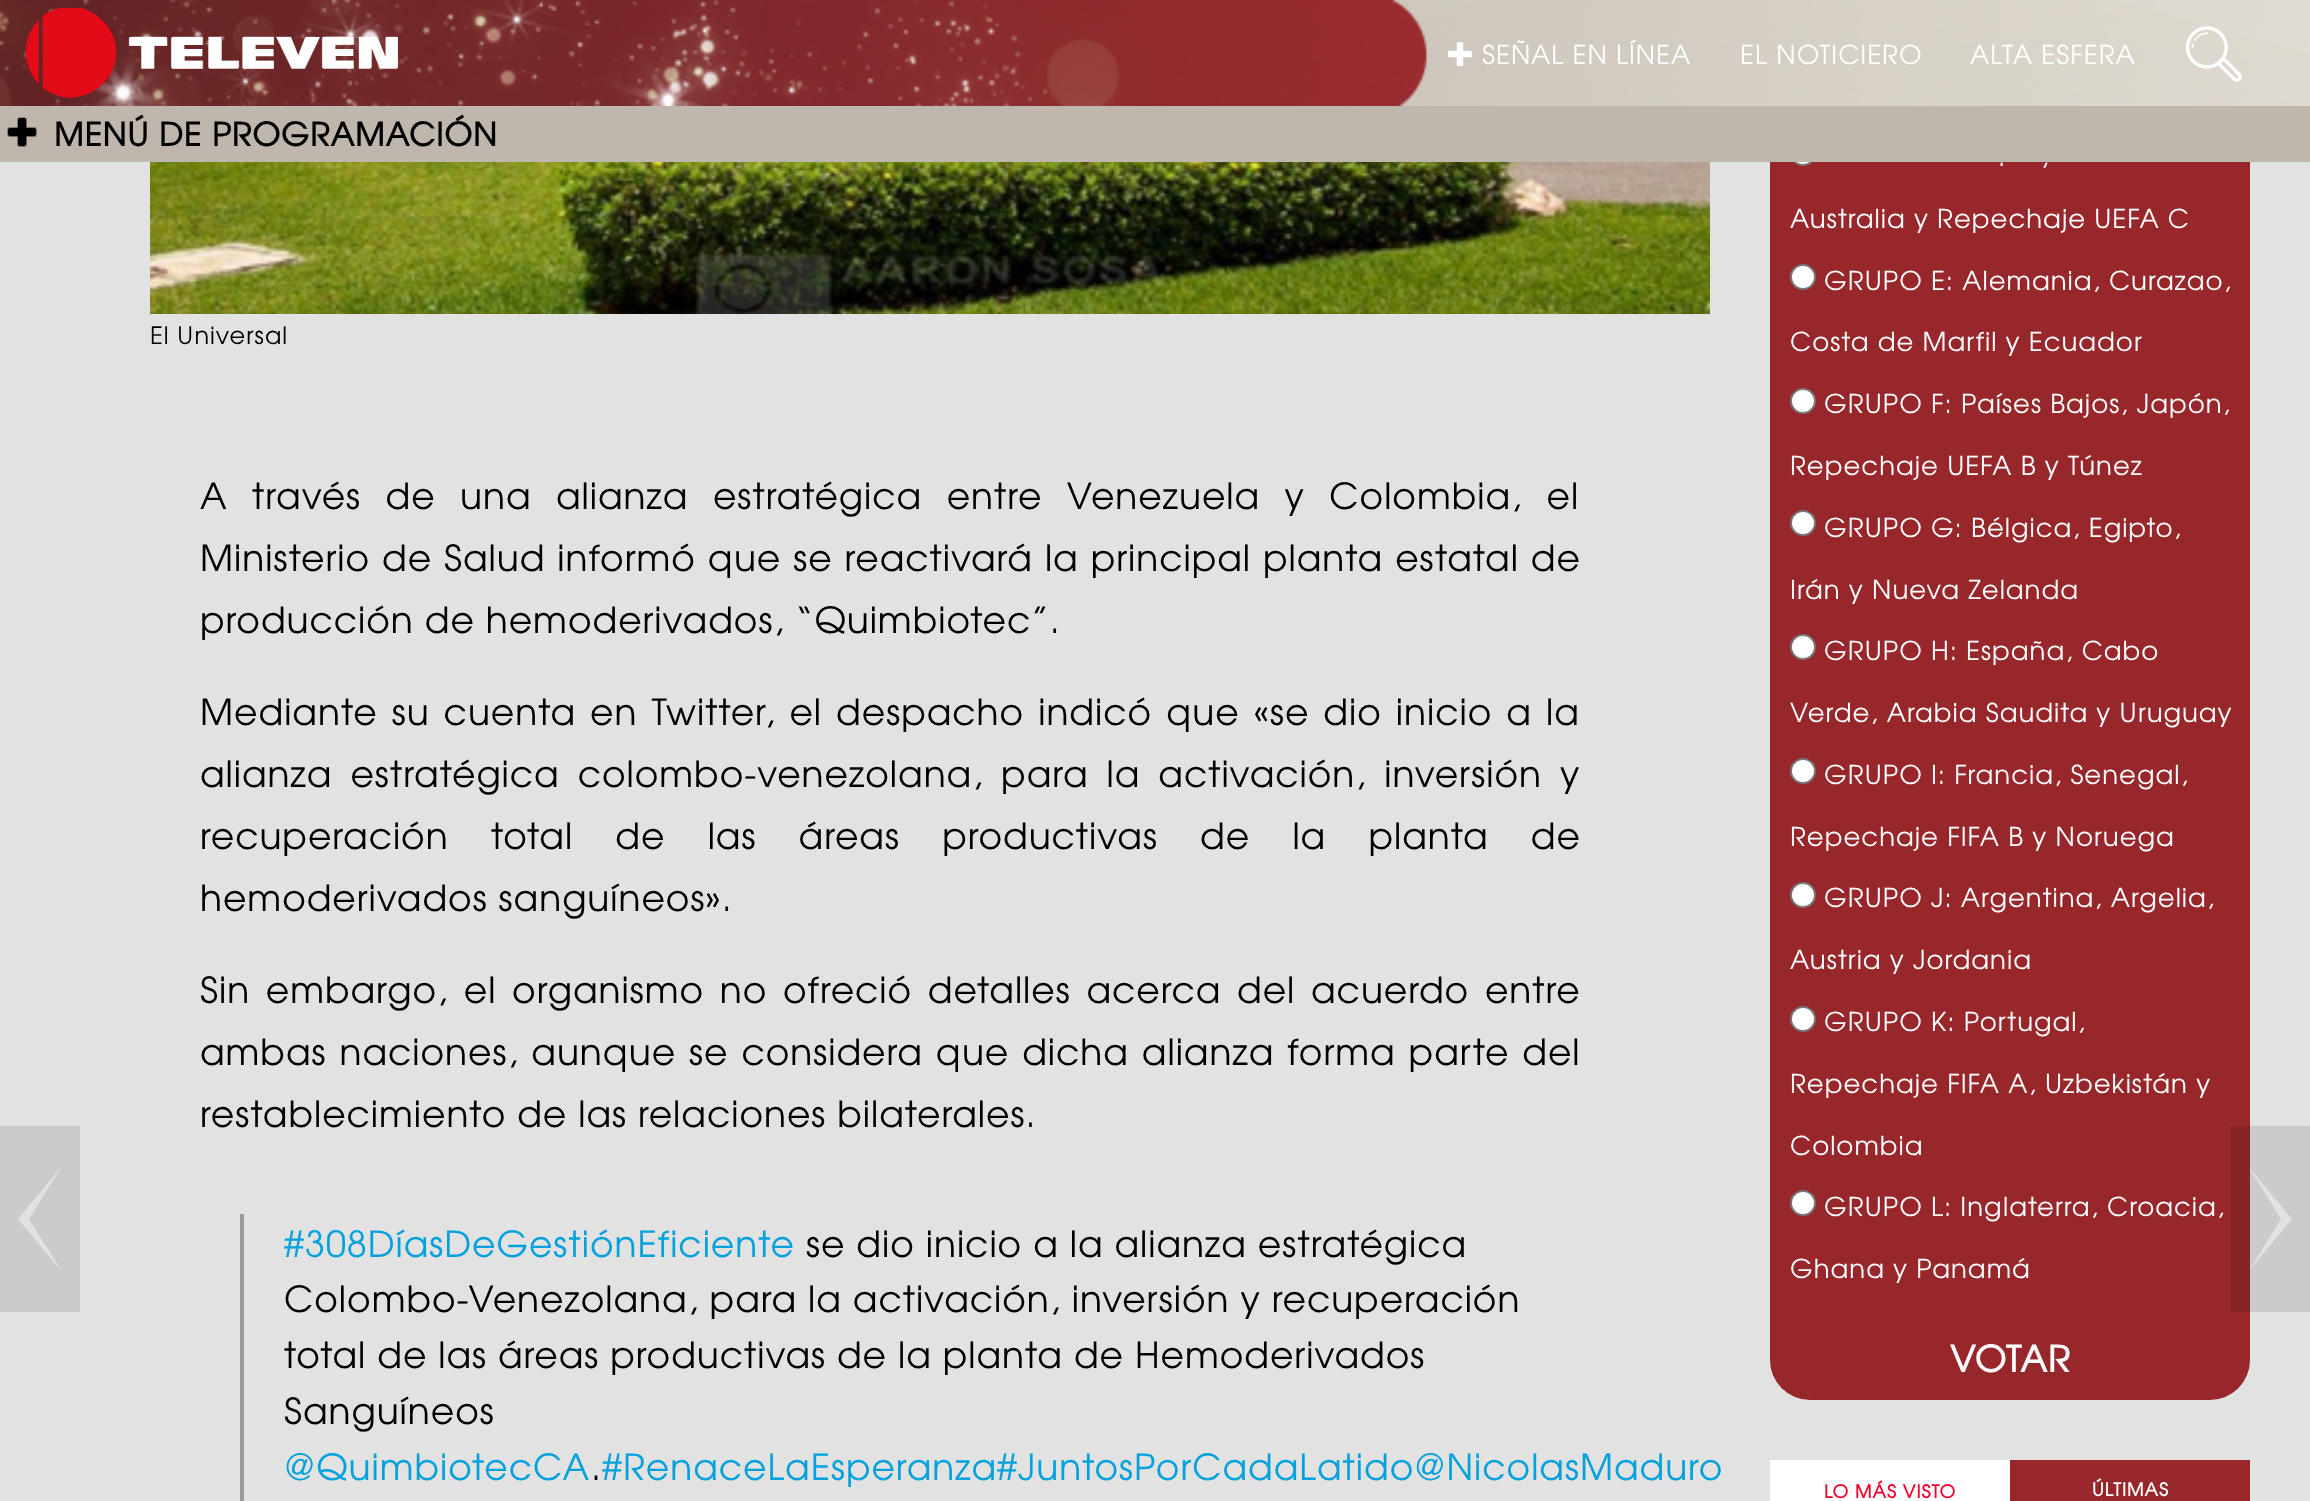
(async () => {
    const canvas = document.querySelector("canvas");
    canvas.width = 2310;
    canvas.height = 1501;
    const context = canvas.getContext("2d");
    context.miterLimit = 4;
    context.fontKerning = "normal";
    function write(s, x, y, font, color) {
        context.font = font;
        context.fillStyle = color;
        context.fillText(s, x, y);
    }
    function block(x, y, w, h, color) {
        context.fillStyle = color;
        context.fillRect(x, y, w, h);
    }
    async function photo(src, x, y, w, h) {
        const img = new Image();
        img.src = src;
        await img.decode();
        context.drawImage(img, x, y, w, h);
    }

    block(0, 0, 2310, 1501, "rgb(226, 226, 226)");
    await photo("media/1.png", 0, 0, 2310, 106);
    await photo("media/2.png", 25, 8, 373, 90);
    await photo("media/3.png", 1448, 42, 24, 24);
    context.letterSpacing = "1px";
    write("SEÑAL EN LÍNEA", 1482, 64, "26px TeX Gyre Adventor", "rgb(255, 255, 255)");
    write("EL NOTICIERO", 1740, 64, "26px TeX Gyre Adventor", "rgb(255, 255, 255)");
    write("ALTA ESFERA", 1970, 64, "26px TeX Gyre Adventor", "rgb(255, 255, 255)");
    await photo("media/4.png", 2185, 26, 57, 56);
    block(1770, 162, 480, 1156, "rgb(152, 39, 44)");
    context.fillStyle = "rgb(255, 255, 255)";
    context.beginPath();
    context.arc(1803, 153, 12, 0, Math.PI * 2);
    context.fill();
    context.strokeStyle = "rgb(118, 118, 118)";
    context.lineWidth = 2;
    context.stroke();
    block(0, 106, 2310, 56, "rgb(191, 183, 173)");
    await photo("media/5.png", 7, 117, 30, 30);
    write("MENÚ DE PROGRAMACIÓN", 54, 146, "bold 32px TeX Gyre Adventor", "rgb(0, 0, 0)");
    context.fillStyle = "rgb(203, 203, 203)";
    context.beginPath();
    context.moveTo(0, 1126);
    context.lineTo(0, 1312);
    context.lineTo(80, 1312);
    context.lineTo(80, 1126);
    context.closePath();
    context.moveTo(62, 1272);
    context.lineTo(18, 1219);
    context.lineTo(62, 1166);
    context.lineTo(29, 1219);
    context.closePath();
    context.fill();
    await photo("media/6.png", 150, 162, 1560, 152);
    write("El Universal", 150, 344, "24px TeX Gyre Adventor", "rgb(0, 0, 0)");
    context.wordSpacing = "13.5px";
    write("A través de una alianza estratégica entre Venezuela y Colombia, el", 200, 509, "36px TeX Gyre Adventor", "rgb(0, 0, 0)");
    context.wordSpacing = "1px";
    write("Ministerio de Salud informó que se reactivará la principal planta estatal de", 200, 571, "36px TeX Gyre Adventor", "rgb(0, 0, 0)");
    context.wordSpacing = "0px";
    write("producción de hemoderivados, “Quimbiotec”.", 200, 633, "36px TeX Gyre Adventor", "rgb(0, 0, 0)");
    context.wordSpacing = "3.1px";
    write("Mediante su cuenta en Twitter, el despacho indicó que «se dio inicio a la", 200, 725, "36px TeX Gyre Adventor", "rgb(0, 0, 0)");
    context.wordSpacing = "7px";
    write("alianza estratégica colombo-venezolana, para la activación, inversión y", 200, 787, "36px TeX Gyre Adventor", "rgb(0, 0, 0)");
    context.wordSpacing = "31.25px";
    write("recuperación total de las áreas productivas de la planta de", 200, 849, "36px TeX Gyre Adventor", "rgb(0, 0, 0)");
    context.wordSpacing = "0px";
    write("hemoderivados sanguíneos».", 200, 911, "36px TeX Gyre Adventor", "rgb(0, 0, 0)");
    context.wordSpacing = "4.75px";
    write("Sin embargo, el organismo no ofreció detalles acerca del acuerdo entre", 200, 1003, "36px TeX Gyre Adventor", "rgb(0, 0, 0)");
    context.wordSpacing = "2px";
    write("ambas naciones, aunque se considera que dicha alianza forma parte del", 200, 1065, "36px TeX Gyre Adventor", "rgb(0, 0, 0)");
    context.wordSpacing = "0px";
    write("restablecimiento de las relaciones bilaterales.", 200, 1127, "36px TeX Gyre Adventor", "rgb(0, 0, 0)");
    block(240, 1214, 4, 287, "rgb(153, 153, 153)");
    write("#308DíasDeGestiónEficiente", 284, 1257, "36px TeX Gyre Adventor", "rgb(0, 161, 221)");
    write("se dio inicio a la alianza estratégica", 806, 1257, "36px TeX Gyre Adventor", "rgb(0, 0, 0)");
    write("Colombo-Venezolana, para la activación, inversión y recuperación", 284, 1312, "36px TeX Gyre Adventor", "rgb(0, 0, 0)");
    write("total de las áreas productivas de la planta de Hemoderivados", 284, 1368, "36px TeX Gyre Adventor", "rgb(0, 0, 0)");
    write("Sanguíneos", 284, 1424, "36px TeX Gyre Adventor", "rgb(0, 0, 0)");
    write("@QuimbiotecCA", 284, 1480, "36px TeX Gyre Adventor", "rgb(0, 161, 221)");
    write(".", 591, 1480, "36px TeX Gyre Adventor", "rgb(0, 0, 0)");
    write("#RenaceLaEsperanza#JuntosPorCadaLatido@NicolasMaduro", 602, 1480, "36px TeX Gyre Adventor", "rgb(0, 161, 221)");
    write(".", 1998, 166, "26px TeX Gyre Adventor", "rgb(255, 255, 255)");
    write(",", 2041, 166, "26px TeX Gyre Adventor", "rgb(255, 255, 255)");
    write("Australia y Repechaje UEFA C", 1790, 228, "26px TeX Gyre Adventor", "rgb(255, 255, 255)");
    context.beginPath();
    context.arc(1803, 277, 12, 0, Math.PI * 2);
    context.fill();
    context.stroke();
    write("GRUPO E: Alemania, Curazao,", 1824, 290, "26px TeX Gyre Adventor", "rgb(255, 255, 255)");
    write("Costa de Marfil y Ecuador", 1790, 351, "26px TeX Gyre Adventor", "rgb(255, 255, 255)");
    context.beginPath();
    context.arc(1803, 401, 12, 0, Math.PI * 2);
    context.fill();
    context.stroke();
    write("GRUPO F: Países Bajos, Japón,", 1824, 413, "26px TeX Gyre Adventor", "rgb(255, 255, 255)");
    write("Repechaje UEFA B y Túnez", 1790, 475, "26px TeX Gyre Adventor", "rgb(255, 255, 255)");
    context.beginPath();
    context.arc(1803, 523, 12, 0, Math.PI * 2);
    context.fill();
    context.stroke();
    write("GRUPO G: Bélgica, Egipto,", 1824, 537, "26px TeX Gyre Adventor", "rgb(255, 255, 255)");
    write("Irán y Nueva Zelanda", 1790, 599, "26px TeX Gyre Adventor", "rgb(255, 255, 255)");
    context.beginPath();
    context.arc(1803, 647, 12, 0, Math.PI * 2);
    context.fill();
    context.stroke();
    write("GRUPO H: España, Cabo", 1824, 660, "26px TeX Gyre Adventor", "rgb(255, 255, 255)");
    write("Verde, Arabia Saudita y Uruguay", 1790, 722, "26px TeX Gyre Adventor", "rgb(255, 255, 255)");
    context.beginPath();
    context.arc(1803, 771, 12, 0, Math.PI * 2);
    context.fill();
    context.stroke();
    write("GRUPO I: Francia, Senegal,", 1824, 784, "26px TeX Gyre Adventor", "rgb(255, 255, 255)");
    write("Repechaje FIFA B y Noruega", 1790, 846, "26px TeX Gyre Adventor", "rgb(255, 255, 255)");
    context.beginPath();
    context.arc(1803, 895, 12, 0, Math.PI * 2);
    context.fill();
    context.stroke();
    write("GRUPO J: Argentina, Argelia,", 1824, 907, "26px TeX Gyre Adventor", "rgb(255, 255, 255)");
    write("Austria y Jordania", 1790, 969, "26px TeX Gyre Adventor", "rgb(255, 255, 255)");
    context.beginPath();
    context.arc(1803, 1019, 12, 0, Math.PI * 2);
    context.fill();
    context.stroke();
    write("GRUPO K: Portugal,", 1824, 1031, "26px TeX Gyre Adventor", "rgb(255, 255, 255)");
    write("Repechaje FIFA A, Uzbekistán y", 1790, 1093, "26px TeX Gyre Adventor", "rgb(255, 255, 255)");
    write("Colombia", 1790, 1155, "26px TeX Gyre Adventor", "rgb(255, 255, 255)");
    context.beginPath();
    context.arc(1803, 1203, 12, 0, Math.PI * 2);
    context.fill();
    context.stroke();
    write("GRUPO L: Inglaterra, Croacia,", 1824, 1216, "26px TeX Gyre Adventor", "rgb(255, 255, 255)");
    write("Ghana y Panamá", 1790, 1278, "26px TeX Gyre Adventor", "rgb(255, 255, 255)");
    context.fillStyle = "rgb(152, 39, 44)";
    context.beginPath();
    context.roundRect(1770, 1318, 480, 82, [0, 0, 40, 40]);
    context.fill();
    write("VOTAR", 1950, 1372, "bold 36px TeX Gyre Adventor", "rgb(255, 255, 255)");
    block(1770, 1460, 240, 41, "rgb(255, 255, 255)");
    write("LO MÁS VISTO", 1824, 1498, "bold 18px TeX Gyre Adventor", "rgb(244, 0, 45)");
    block(2010, 1460, 240, 41, "rgb(152, 39, 44)");
    write("ÚLTIMAS", 2092, 1496, "bold 18px TeX Gyre Adventor", "rgb(255, 255, 255)");
    context.fillStyle = "rgba(0, 0, 0, 0.1)";
    context.beginPath();
    context.moveTo(2310, 1312);
    context.lineTo(2310, 1126);
    context.lineTo(2230, 1126);
    context.lineTo(2230, 1312);
    context.closePath();
    context.moveTo(2248, 1166);
    context.lineTo(2292, 1219);
    context.lineTo(2248, 1272);
    context.lineTo(2281, 1219);
    context.closePath();
    context.fill();
})();
